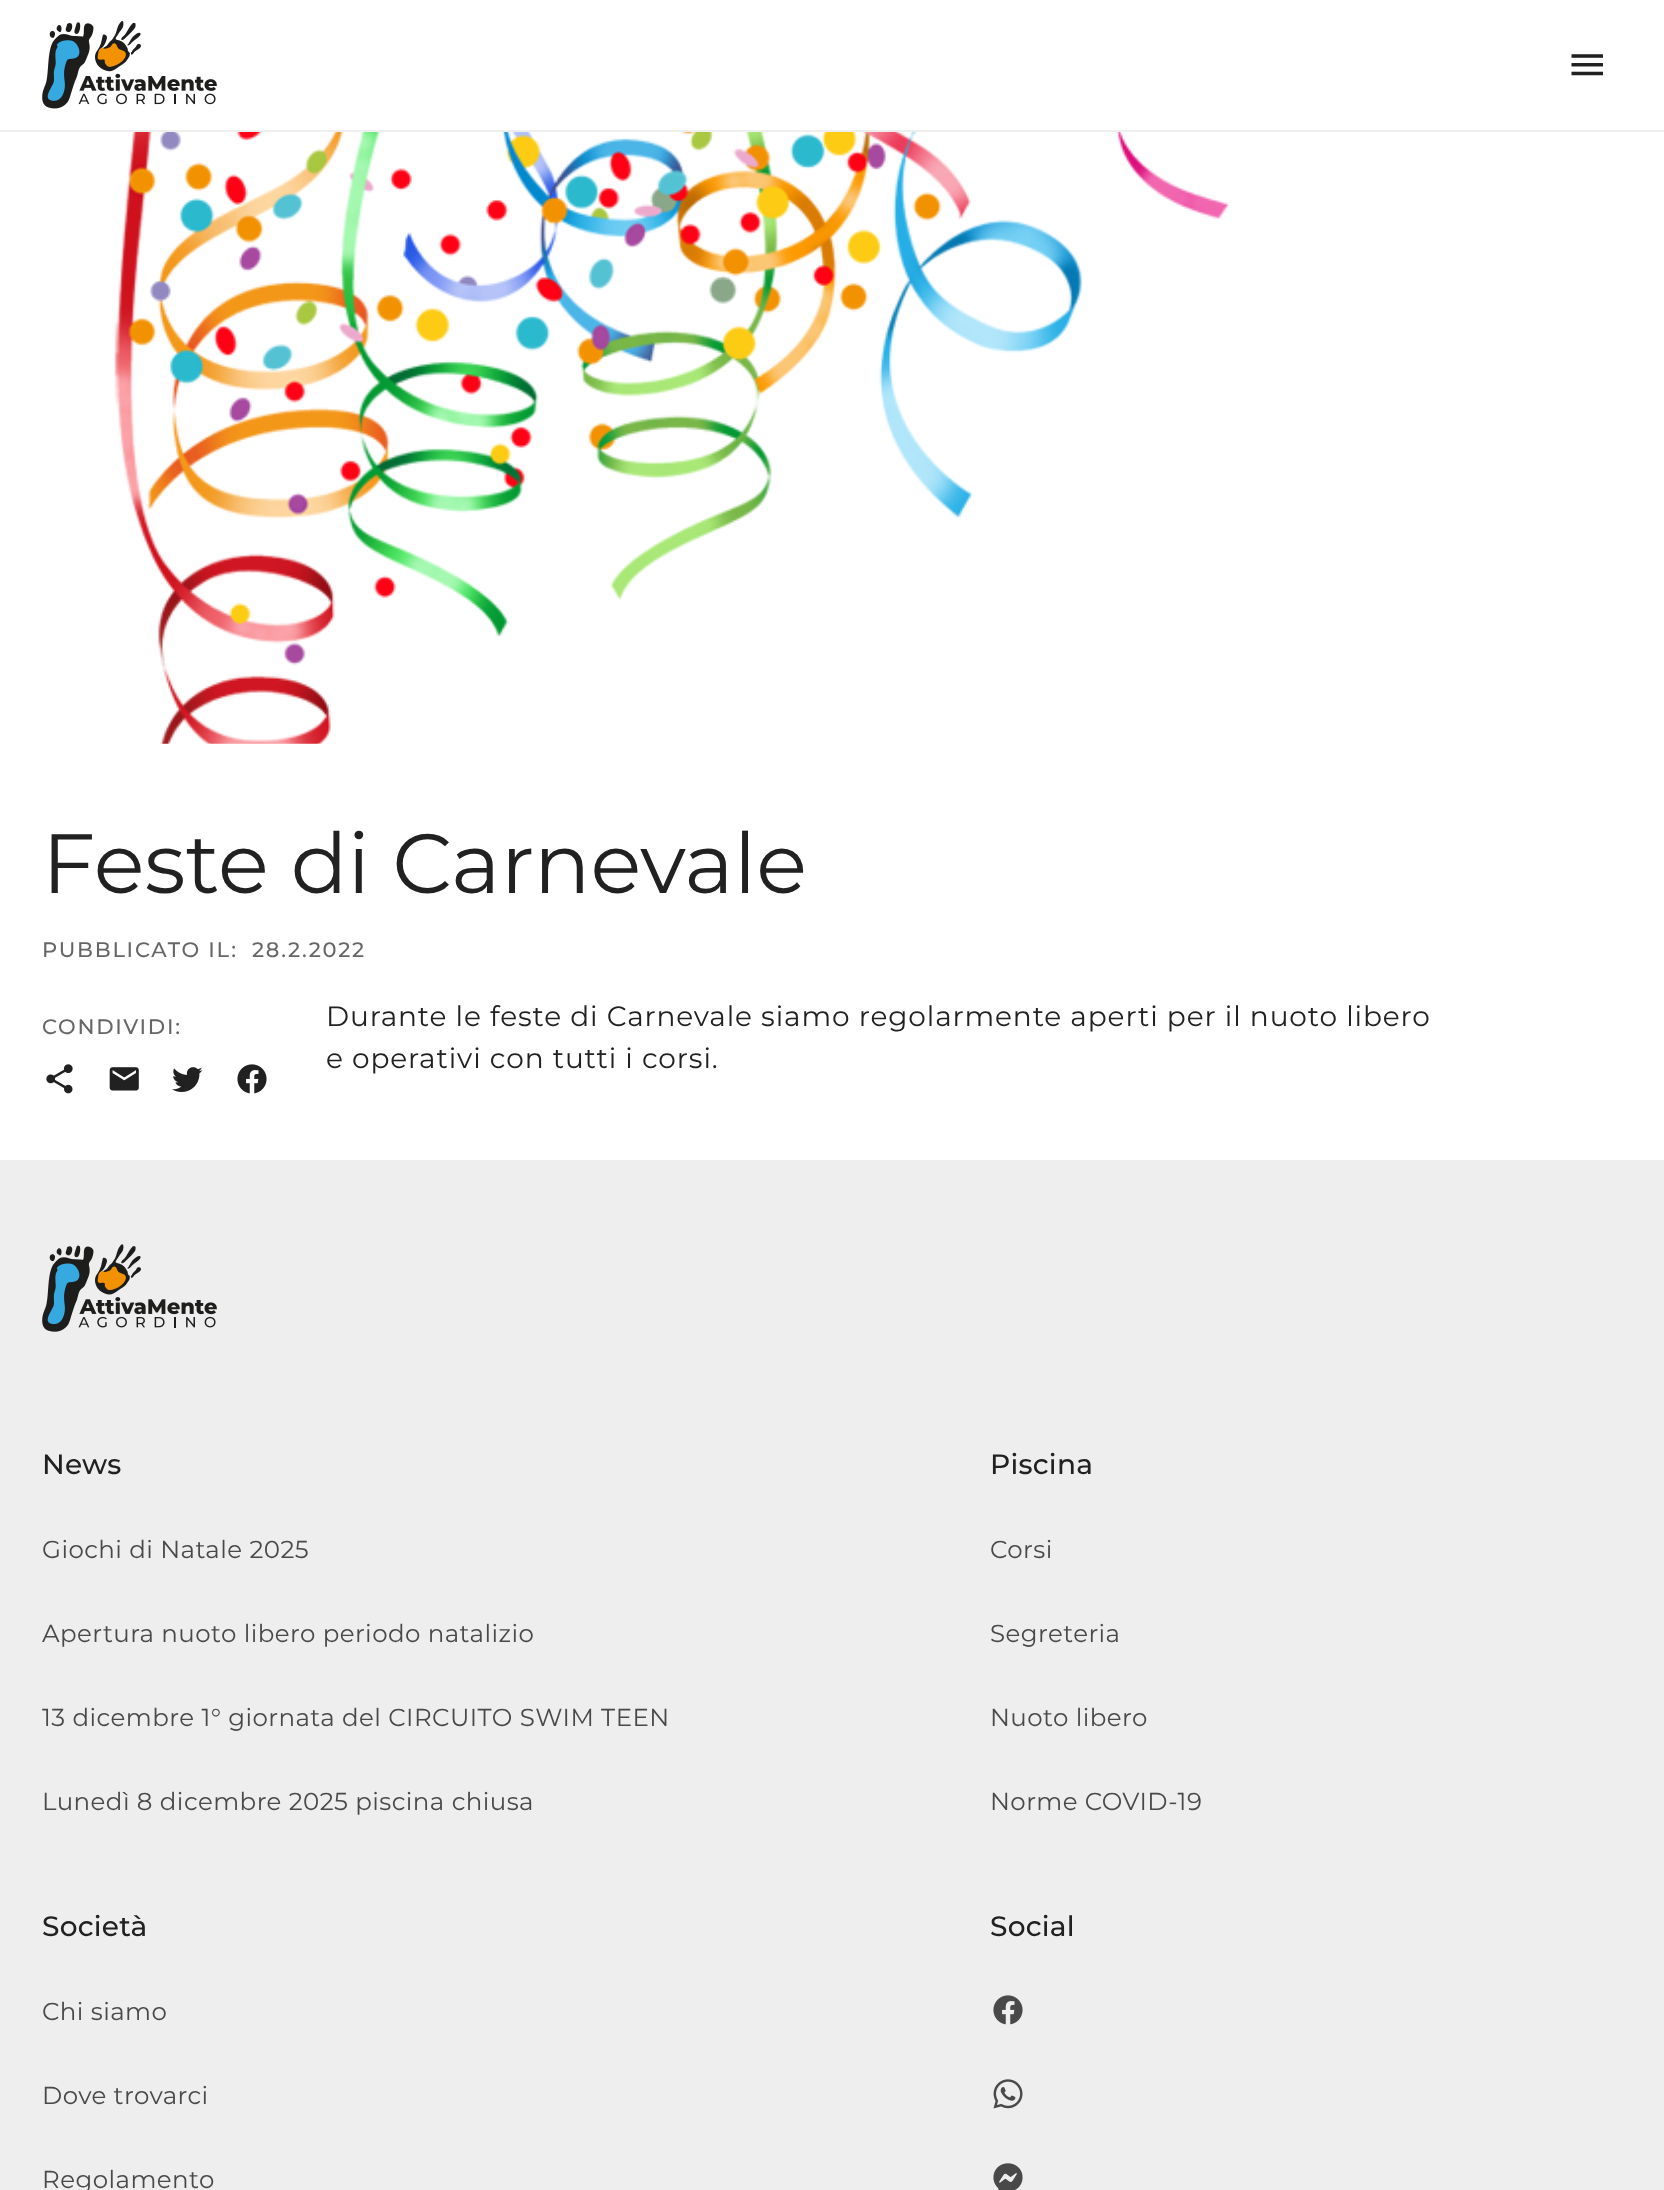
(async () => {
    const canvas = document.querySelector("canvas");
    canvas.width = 1664;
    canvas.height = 2190;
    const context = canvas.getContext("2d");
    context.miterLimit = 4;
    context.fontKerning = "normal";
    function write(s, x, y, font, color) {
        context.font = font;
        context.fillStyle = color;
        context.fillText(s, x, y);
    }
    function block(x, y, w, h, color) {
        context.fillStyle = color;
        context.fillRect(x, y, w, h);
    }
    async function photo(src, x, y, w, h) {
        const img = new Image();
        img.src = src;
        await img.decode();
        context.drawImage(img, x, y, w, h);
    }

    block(0, 0, 1664, 2190, "rgb(255, 255, 255)");
    block(0, 130, 1664, 2, "rgb(238, 238, 238)");
    await photo("media/1.png", 42, 21, 175, 88);
    await photo("media/2.png", 1571, 54, 32, 22);
    await photo("media/3.png", 114, 132, 1116, 612);
    write("Feste di Carnevale", 42, 893, "84px Montserrat", "rgb(33, 33, 33)");
    context.letterSpacing = "1.75px";
    write("PUBBLICATO IL:", 42, 957, "500 21px Montserrat", "rgb(102, 102, 102)");
    write("28.2.2022", 252, 957, "500 21px Montserrat", "rgb(102, 102, 102)");
    write("CONDIVIDI:", 42, 1034, "500 21px Montserrat", "rgb(102, 102, 102)");
    await photo("media/4.png", 46, 1064, 27, 30);
    await photo("media/5.png", 109, 1067, 30, 24);
    await photo("media/6.png", 172, 1067, 31, 25);
    await photo("media/7.png", 237, 1064, 30, 30);
    context.letterSpacing = "0.88px";
    write("Durante le feste di Carnevale siamo regolarmente aperti per il nuoto libero", 326, 1026, "28px Montserrat", "rgb(33, 33, 33)");
    write("e operativi con tutti i corsi.", 326, 1068, "28px Montserrat", "rgb(33, 33, 33)");
    block(0, 1160, 1664, 1030, "rgb(238, 238, 238)");
    await photo("media/8.png", 42, 1244, 175, 88);
    context.letterSpacing = "0.25px";
    write("News", 42, 1474, "500 28px Montserrat", "rgb(33, 33, 33)");
    context.letterSpacing = "0.45px";
    write("Giochi di Natale 2025", 42, 1558, "24.5px Montserrat", "rgb(73, 73, 73)");
    write("Apertura nuoto libero periodo natalizio", 42, 1642, "24.5px Montserrat", "rgb(73, 73, 73)");
    write("13 dicembre 1° giornata del CIRCUITO SWIM TEEN", 42, 1726, "24.5px Montserrat", "rgb(73, 73, 73)");
    write("Lunedì 8 dicembre 2025 piscina chiusa", 42, 1810, "24.5px Montserrat", "rgb(73, 73, 73)");
    context.letterSpacing = "0.25px";
    write("Piscina", 990, 1474, "500 28px Montserrat", "rgb(33, 33, 33)");
    context.letterSpacing = "0.45px";
    write("Corsi", 990, 1558, "24.5px Montserrat", "rgb(73, 73, 73)");
    write("Segreteria", 990, 1642, "24.5px Montserrat", "rgb(73, 73, 73)");
    write("Nuoto libero", 990, 1726, "24.5px Montserrat", "rgb(73, 73, 73)");
    write("Norme COVID-19", 990, 1810, "24.5px Montserrat", "rgb(73, 73, 73)");
    context.letterSpacing = "0.25px";
    write("Società", 42, 1936, "500 28px Montserrat", "rgb(33, 33, 33)");
    context.letterSpacing = "0.45px";
    write("Chi siamo", 42, 2020, "24.5px Montserrat", "rgb(73, 73, 73)");
    write("Dove trovarci", 42, 2104, "24.5px Montserrat", "rgb(73, 73, 73)");
    write("Regolamento", 42, 2188, "24.5px Montserrat", "rgb(73, 73, 73)");
    context.letterSpacing = "0.25px";
    write("Social", 990, 1936, "500 28px Montserrat", "rgb(33, 33, 33)");
    await photo("media/9.png", 993, 1995, 30, 30);
    await photo("media/10.png", 993, 2079, 30, 30);
    await photo("media/11.png", 993, 2163, 30, 27);
})();
